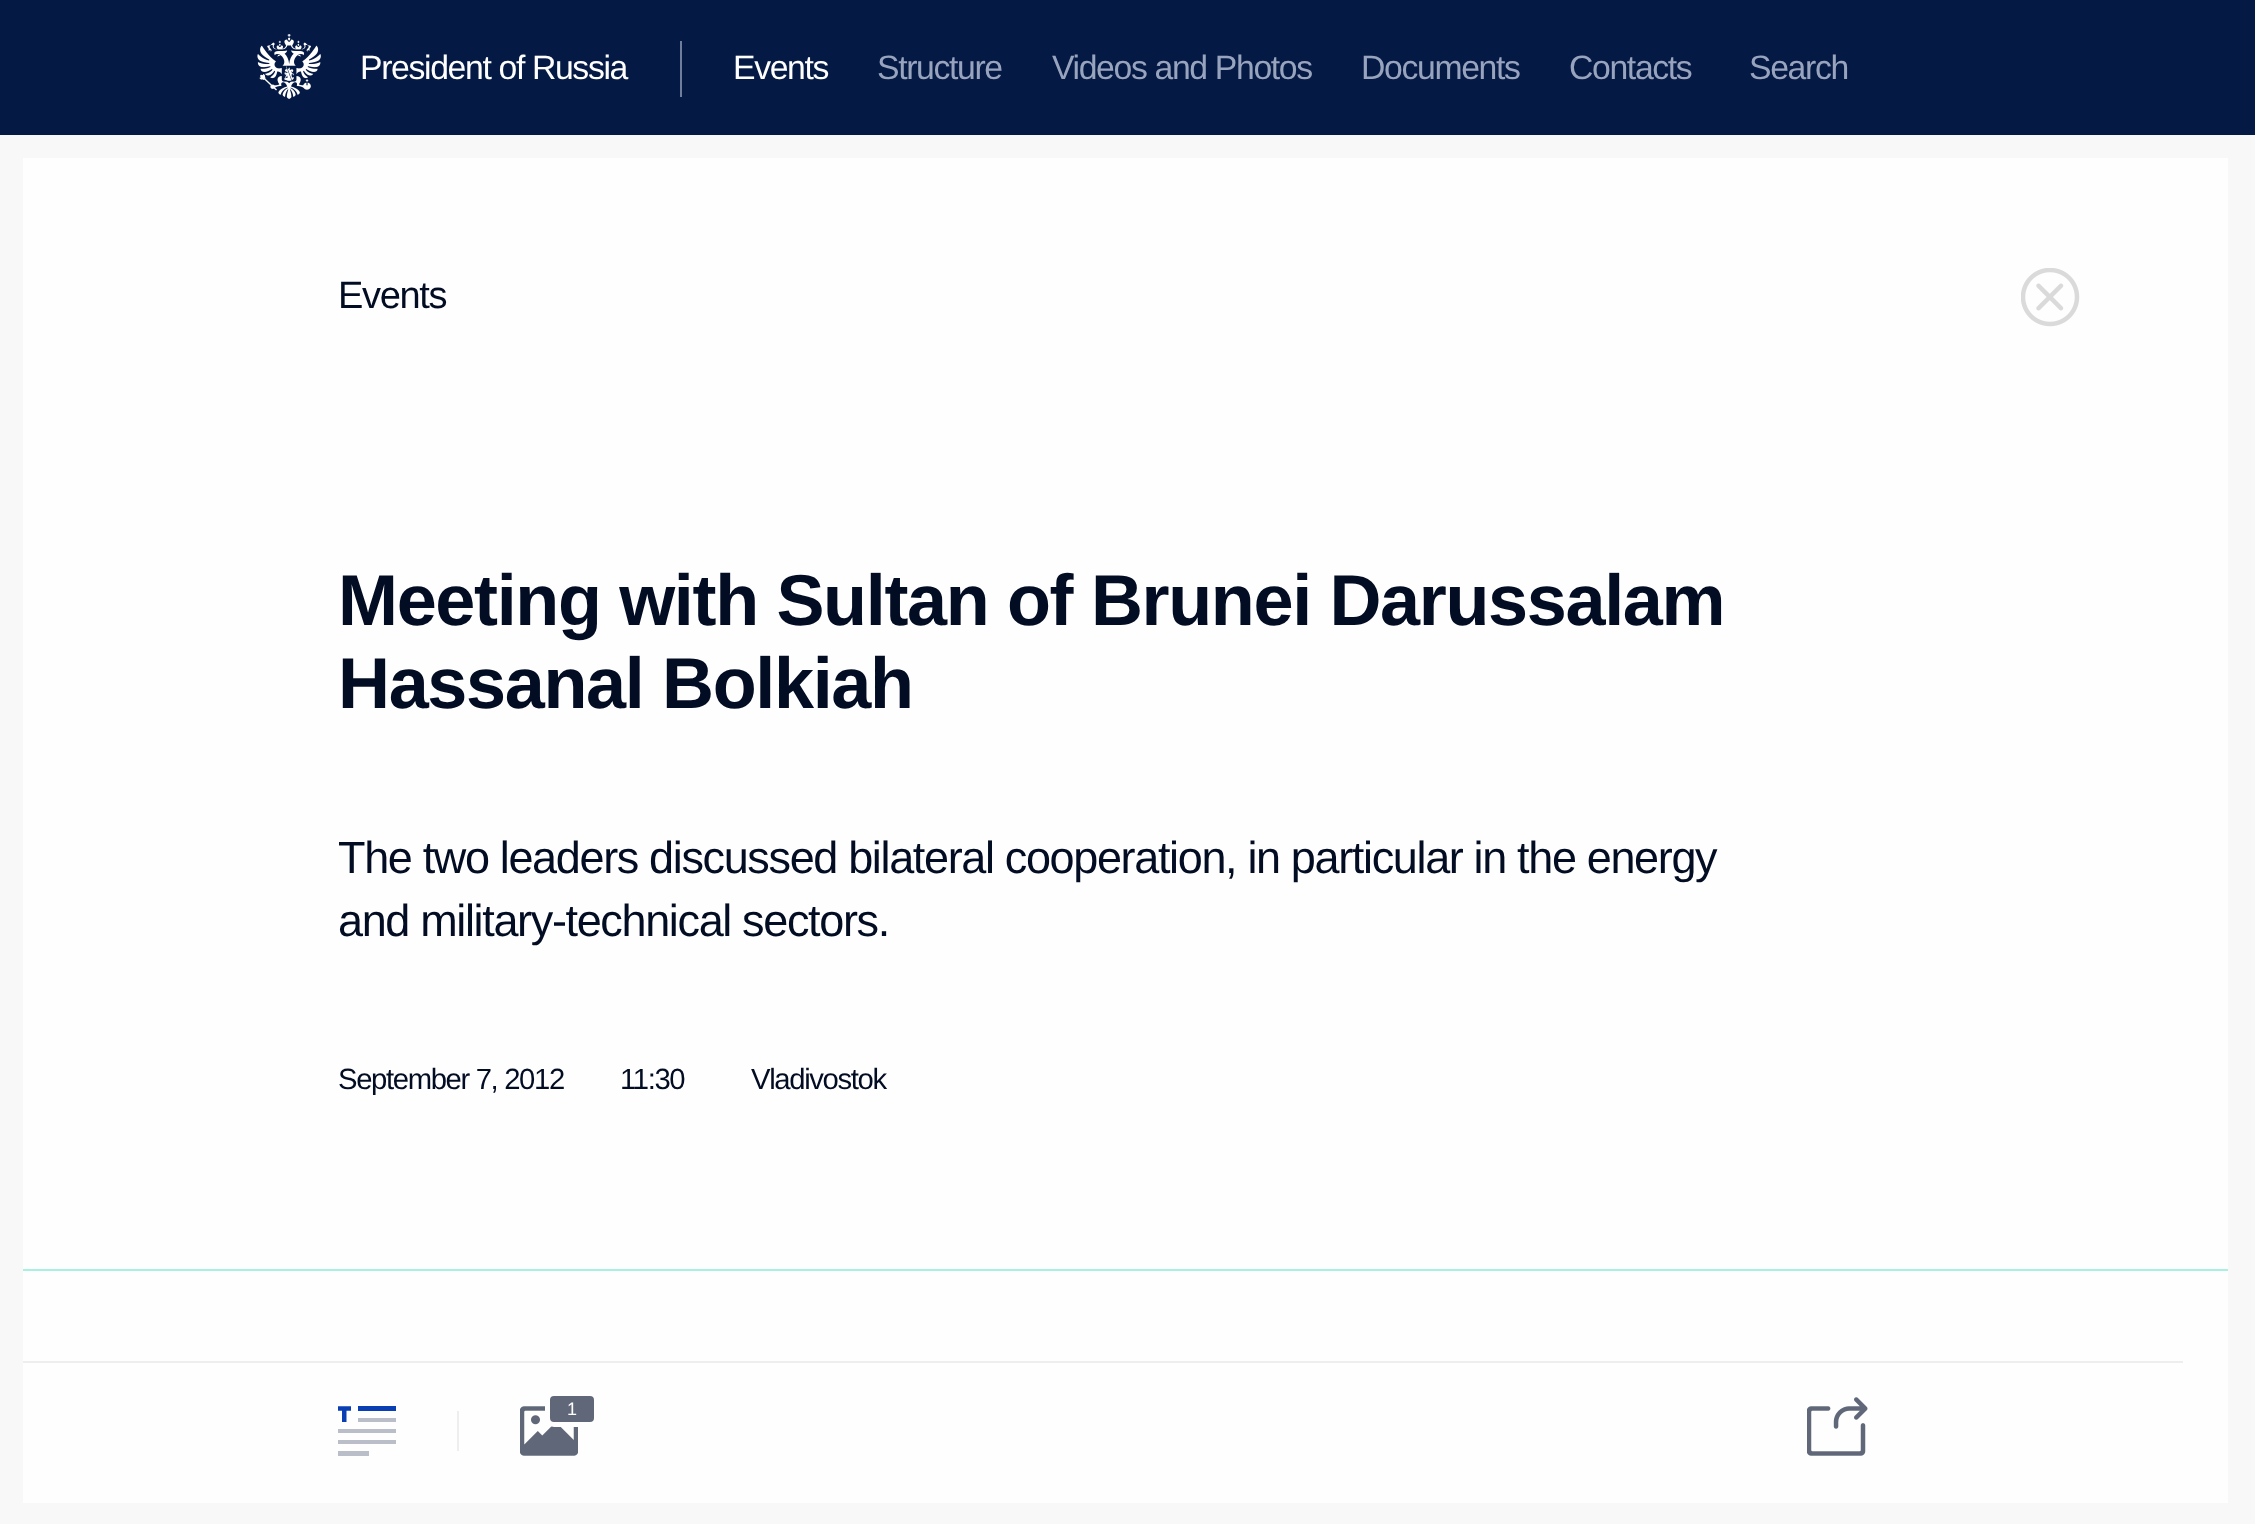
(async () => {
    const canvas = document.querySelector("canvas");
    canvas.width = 2255;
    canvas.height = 1524;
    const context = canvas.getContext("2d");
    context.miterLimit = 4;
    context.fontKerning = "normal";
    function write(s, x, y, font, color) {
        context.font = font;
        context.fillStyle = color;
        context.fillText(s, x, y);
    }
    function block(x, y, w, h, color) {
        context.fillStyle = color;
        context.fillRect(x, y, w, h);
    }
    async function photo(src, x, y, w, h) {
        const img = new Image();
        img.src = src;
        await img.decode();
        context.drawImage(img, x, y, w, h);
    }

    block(0, 0, 2255, 1524, "rgb(248, 248, 248)");
    block(0, 0, 2255, 135, "rgb(5, 25, 69)");
    await photo("media/1.png", 257, 34, 64, 65);
    context.letterSpacing = "-1.35px";
    write("President of Russia", 360, 79, "33.75px Liberation Sans", "rgb(254, 254, 254)");
    block(680, 41, 2, 56, "rgb(112, 126, 156)");
    write("Events", 733, 79, "33.75px Liberation Sans", "rgb(254, 254, 254)");
    write("Structure", 877, 79, "33.75px Liberation Sans", "rgb(152, 164, 190)");
    write("Videos and Photos", 1052, 79, "33.75px Liberation Sans", "rgb(152, 164, 190)");
    write("Documents", 1361, 79, "33.75px Liberation Sans", "rgb(152, 164, 190)");
    write("Contacts", 1569, 79, "33.75px Liberation Sans", "rgb(152, 164, 190)");
    write("Search", 1749, 79, "33.75px Liberation Sans", "rgb(152, 164, 190)");
    block(23, 158, 2205, 1345, "rgb(254, 254, 254)");
    block(23, 1269, 2205, 2, "rgb(168, 240, 224)");
    write("Events", 338, 308, "38px Liberation Sans", "rgb(2, 12, 34)");
    write("Meeting with Sultan of Brunei Darussalam", 338, 625, "bold 72px Liberation Sans", "rgb(2, 12, 34)");
    write("Hassanal Bolkiah", 338, 708, "bold 72px Liberation Sans", "rgb(2, 12, 34)");
    write("The two leaders discussed bilateral cooperation, in particular in the energy", 338, 873, "45px Liberation Sans", "rgb(2, 12, 34)");
    write("and military-technical sectors.", 338, 936, "45px Liberation Sans", "rgb(2, 12, 34)");
    write("September 7, 2012", 338, 1089, "29.25px Liberation Sans", "rgb(2, 12, 34)");
    write("11:30", 620, 1089, "29.25px Liberation Sans", "rgb(2, 12, 34)");
    write("Vladivostok", 751, 1089, "29.25px Liberation Sans", "rgb(2, 12, 34)");
    await photo("media/2.png", 2021, 268, 59, 59);
    block(23, 1361, 2160, 2, "rgb(238, 238, 238)");
    await photo("media/3.png", 338, 1406, 58, 50);
    block(457, 1411, 2, 40, "rgb(238, 238, 238)");
    await photo("media/4.png", 520, 1406, 58, 50);
    context.fillStyle = "rgb(96, 103, 120)";
    context.beginPath();
    context.roundRect(547.5, 1393.5, 49, 31, 6.5);
    context.fill();
    context.strokeStyle = "rgb(254, 254, 254)";
    context.lineWidth = 5;
    context.stroke();
    write("1", 567, 1415, "18px Liberation Sans", "rgb(254, 254, 254)");
    await photo("media/5.png", 1807, 1397, 61, 59);
})();
